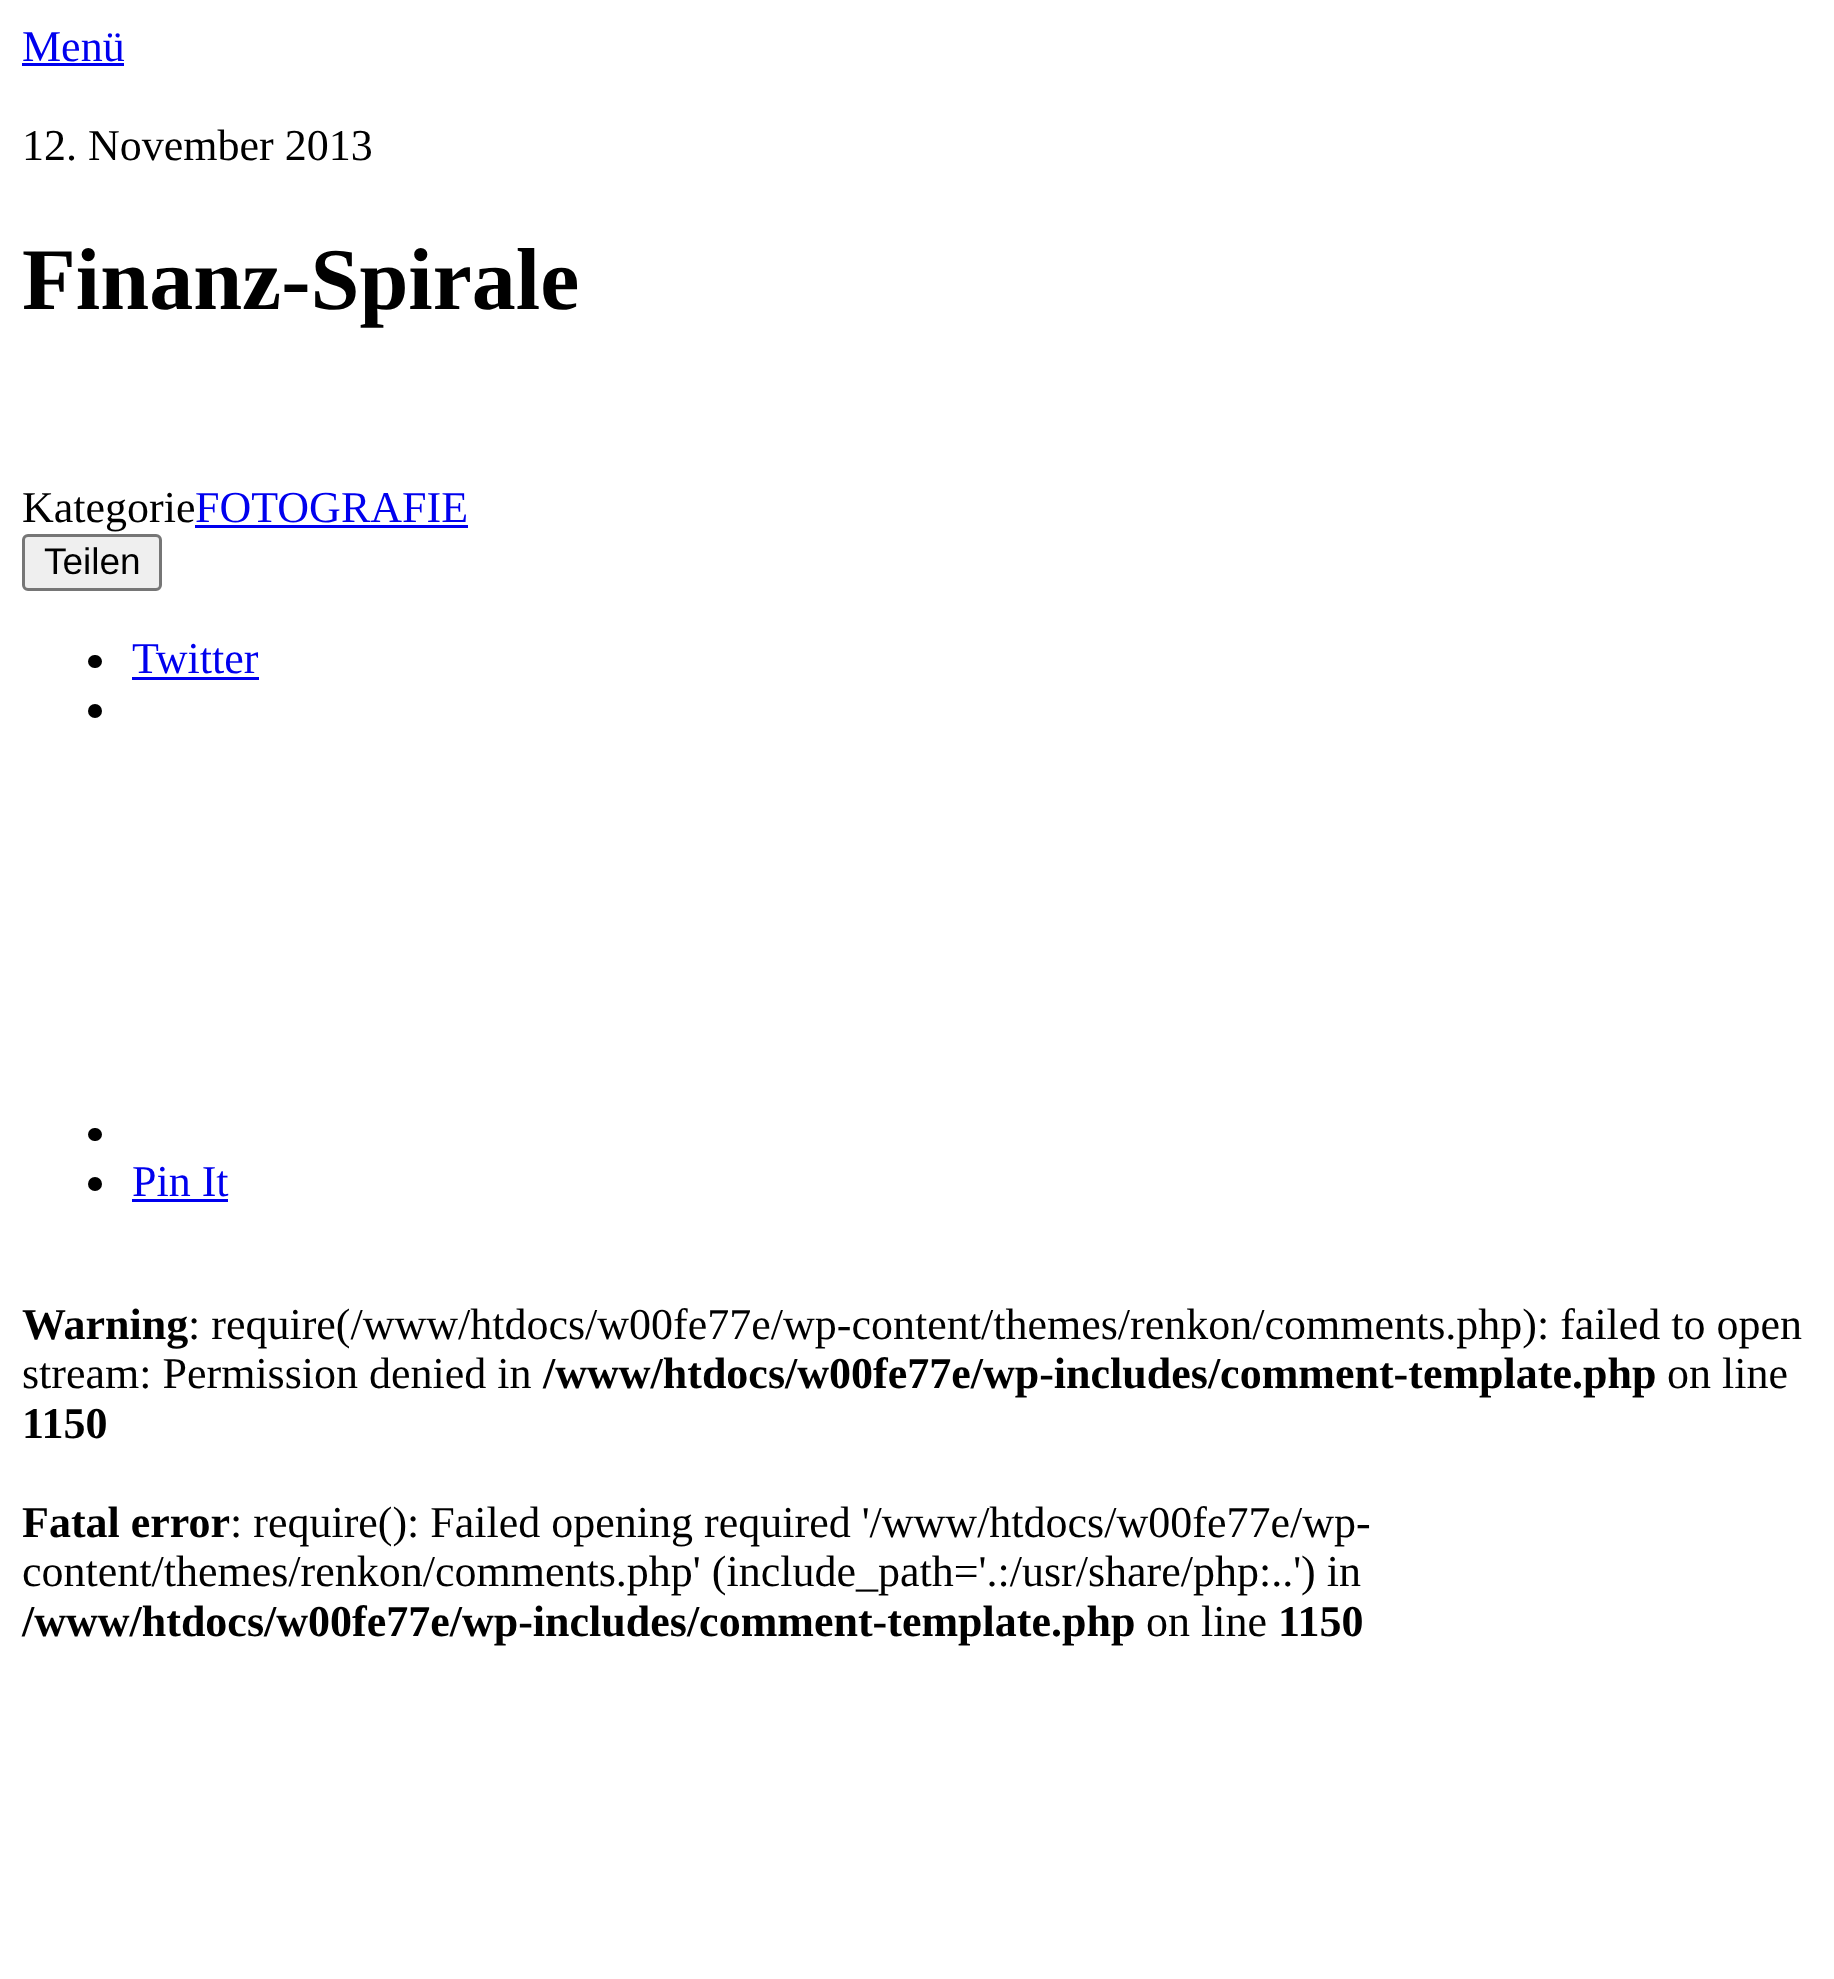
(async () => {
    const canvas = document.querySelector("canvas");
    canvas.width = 1834;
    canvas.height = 1979;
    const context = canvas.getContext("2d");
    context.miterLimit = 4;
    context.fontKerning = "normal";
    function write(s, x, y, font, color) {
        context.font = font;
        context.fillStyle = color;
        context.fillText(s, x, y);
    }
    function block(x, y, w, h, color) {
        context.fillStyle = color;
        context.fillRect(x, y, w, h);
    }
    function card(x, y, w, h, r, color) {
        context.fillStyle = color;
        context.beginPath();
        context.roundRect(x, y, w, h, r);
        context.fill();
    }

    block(0, 0, 1834, 1979, "rgb(255, 255, 255)");
    write("Menü", 22, 61, "44px Liberation Serif", "rgb(0, 0, 238)");
    block(22, 63, 102, 3, "rgb(0, 0, 238)");
    write("12. November 2013", 22, 160, "44px Liberation Serif", "rgb(0, 0, 0)");
    write("Finanz-Spirale", 22, 309, "bold 88px Liberation Serif", "rgb(0, 0, 0)");
    write("Kategorie", 22, 522, "44px Liberation Serif", "rgb(0, 0, 0)");
    write("FOTOGRAFIE", 195, 522, "44px Liberation Serif", "rgb(0, 0, 238)");
    block(195, 525, 273, 3, "rgb(0, 0, 238)");
    context.fillStyle = "rgb(239, 239, 239)";
    context.beginPath();
    context.roundRect(23.5, 535.5, 137, 54, 4.5);
    context.fill();
    context.strokeStyle = "rgb(118, 118, 118)";
    context.lineWidth = 3;
    context.stroke();
    write("Teilen", 44, 574, "37px Liberation Sans", "rgb(0, 0, 0)");
    card(88, 655, 14, 13, 6.5, "rgb(0, 0, 0)");
    write("Twitter", 132, 673, "44px Liberation Serif", "rgb(0, 0, 238)");
    block(132, 677, 127, 3, "rgb(0, 0, 238)");
    context.fillStyle = "rgb(0, 0, 0)";
    context.beginPath();
    context.arc(95, 711, 7, 0, Math.PI * 2);
    context.fill();
    card(88, 1128, 14, 13, 6.5, "rgb(0, 0, 0)");
    context.beginPath();
    context.arc(95, 1184, 7, 0, Math.PI * 2);
    context.fill();
    write("Pin It", 132, 1196, "44px Liberation Serif", "rgb(0, 0, 238)");
    block(132, 1199, 96, 3, "rgb(0, 0, 238)");
    write("Warning", 22, 1339, "bold 44px Liberation Serif", "rgb(0, 0, 0)");
    write(": require(/www/htdocs/w00fe77e/wp-content/themes/renkon/comments.php): failed to open", 188, 1339, "44px Liberation Serif", "rgb(0, 0, 0)");
    write("stream: Permission denied in", 22, 1388, "44px Liberation Serif", "rgb(0, 0, 0)");
    write("/www/htdocs/w00fe77e/wp-includes/comment-template.php", 543, 1388, "bold 44px Liberation Serif", "rgb(0, 0, 0)");
    write("on line", 1667, 1388, "44px Liberation Serif", "rgb(0, 0, 0)");
    write("1150", 22, 1438, "bold 44px Liberation Serif", "rgb(0, 0, 0)");
    write("Fatal error", 22, 1537, "bold 44px Liberation Serif", "rgb(0, 0, 0)");
    write(": require(): Failed opening required '/www/htdocs/w00fe77e/wp-", 230, 1537, "44px Liberation Serif", "rgb(0, 0, 0)");
    write("content/themes/renkon/comments.php' (include_path='.:/usr/share/php:..') in", 22, 1586, "44px Liberation Serif", "rgb(0, 0, 0)");
    write("/www/htdocs/w00fe77e/wp-includes/comment-template.php", 22, 1636, "bold 44px Liberation Serif", "rgb(0, 0, 0)");
    write("on line", 1146, 1636, "44px Liberation Serif", "rgb(0, 0, 0)");
    write("1150", 1278, 1636, "bold 44px Liberation Serif", "rgb(0, 0, 0)");
})();
